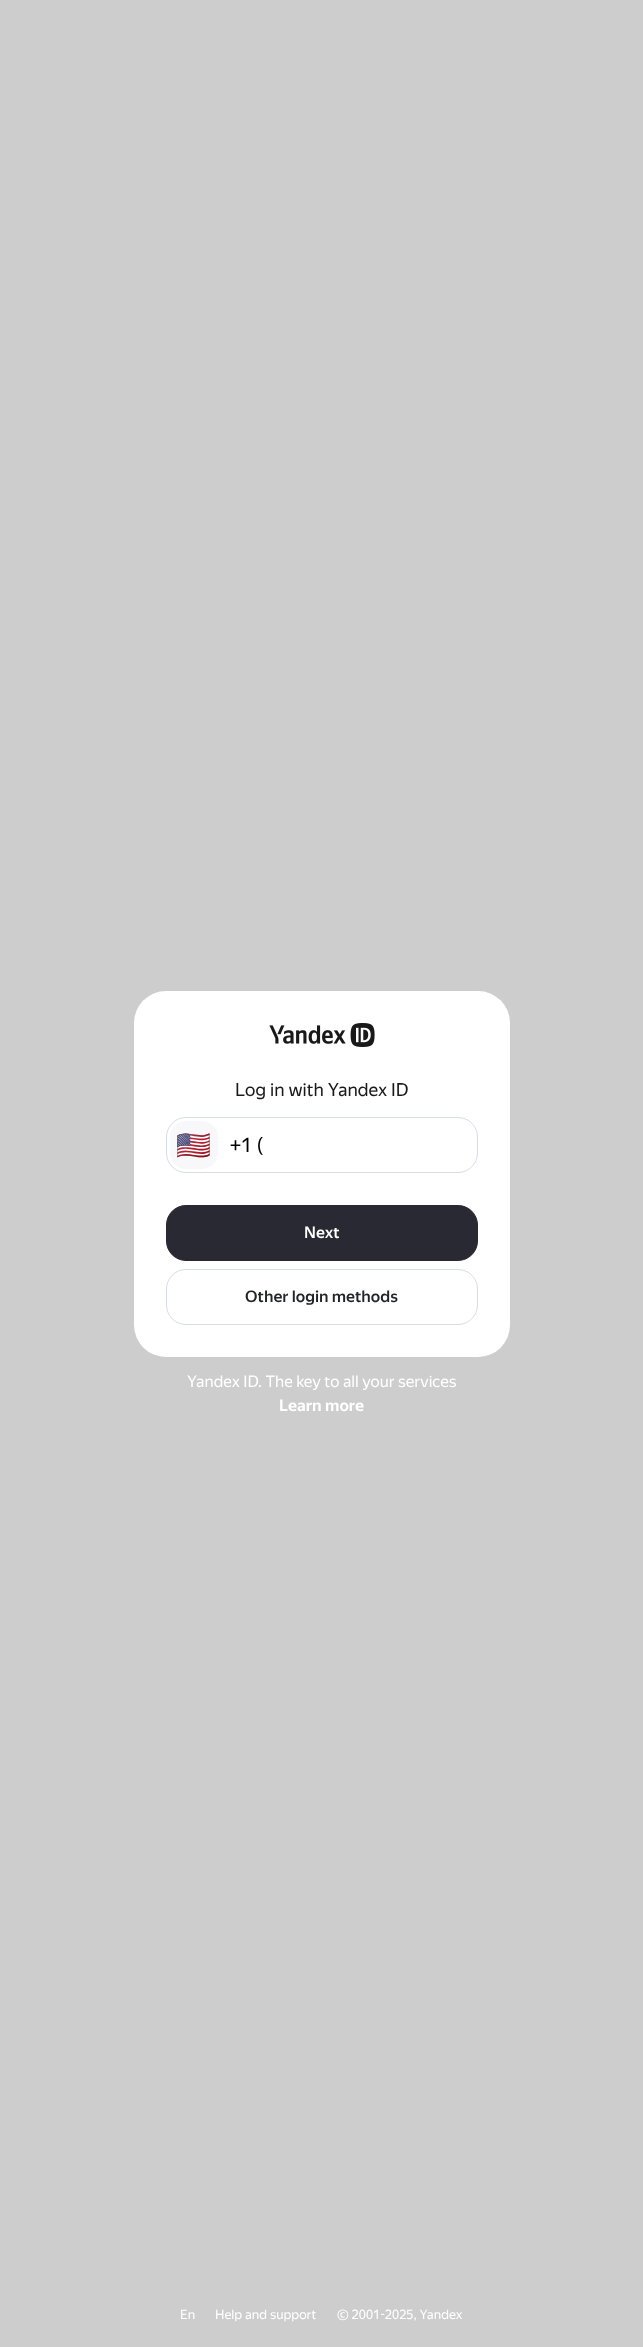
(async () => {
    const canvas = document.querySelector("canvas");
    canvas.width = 643;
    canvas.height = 2347;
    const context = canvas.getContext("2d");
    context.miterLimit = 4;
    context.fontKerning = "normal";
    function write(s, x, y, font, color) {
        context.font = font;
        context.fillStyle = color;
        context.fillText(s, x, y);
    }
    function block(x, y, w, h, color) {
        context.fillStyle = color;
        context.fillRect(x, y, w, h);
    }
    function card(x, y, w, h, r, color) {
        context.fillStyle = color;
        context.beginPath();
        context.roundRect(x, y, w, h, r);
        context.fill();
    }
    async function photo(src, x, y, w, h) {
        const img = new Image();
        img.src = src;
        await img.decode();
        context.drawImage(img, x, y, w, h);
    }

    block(0, 0, 643, 2347, "rgb(205, 205, 205)");
    card(134, 991, 376, 366, 32, "rgb(255, 255, 255)");
    await photo("media/1.png", 269, 1023, 106, 24);
    write("Log in with Yandex ID", 235, 1096, "18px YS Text", "rgb(26, 26, 26)");
    context.beginPath();
    context.roundRect(166.5, 1117.5, 311, 55, 19.5);
    context.strokeStyle = "rgb(216, 220, 230)";
    context.stroke();
    card(170, 1121, 48, 48, 16, "rgb(248, 248, 250)");
    write("🇺🇸", 176, 1155, "28px Noto Color Emoji", "rgb(0, 0, 0)");
    write("+1 (", 230, 1152, "20px YS Text", "rgb(0, 0, 0)");
    context.fillStyle = "rgb(41, 41, 51)";
    context.beginPath();
    context.roundRect(166.5, 1205.5, 311, 55, 19.5);
    context.fill();
    context.strokeStyle = "rgb(41, 41, 51)";
    context.stroke();
    write("Next", 304, 1238, "500 16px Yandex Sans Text", "rgb(255, 255, 255)");
    context.beginPath();
    context.roundRect(166.5, 1269.5, 311, 55, 19.5);
    context.strokeStyle = "rgb(216, 220, 230)";
    context.stroke();
    write("Other login methods", 245, 1302, "500 16px Yandex Sans Text", "rgb(34, 36, 38)");
    write("Yandex ID. The key to all your services", 187, 1387, "16px YS Text", "rgb(255, 255, 255)");
    write("Learn more", 279, 1411, "bold 16px YS Text", "rgb(255, 255, 255)");
    write("En", 180, 2319, "13px YS Text", "rgb(255, 255, 255)");
    write("Help and support", 215, 2319, "13px YS Text", "rgb(255, 255, 255)");
    write("© 2001-2025, Yandex", 337, 2319, "13px YS Text", "rgb(255, 255, 255)");
})();
